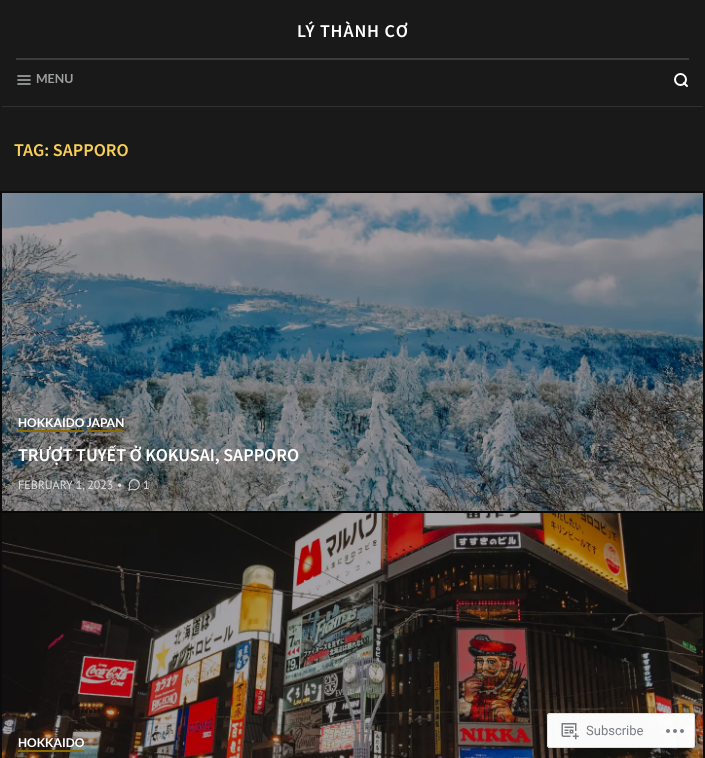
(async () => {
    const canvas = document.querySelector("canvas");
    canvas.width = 705;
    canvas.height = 758;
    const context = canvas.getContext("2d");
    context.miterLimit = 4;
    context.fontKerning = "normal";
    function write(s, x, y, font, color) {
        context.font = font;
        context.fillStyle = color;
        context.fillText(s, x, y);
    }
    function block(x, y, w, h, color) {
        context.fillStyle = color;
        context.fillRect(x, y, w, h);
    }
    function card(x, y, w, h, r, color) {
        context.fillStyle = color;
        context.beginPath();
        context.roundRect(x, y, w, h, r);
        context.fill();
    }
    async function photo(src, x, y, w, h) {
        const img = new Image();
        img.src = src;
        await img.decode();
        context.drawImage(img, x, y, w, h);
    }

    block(0, 0, 705, 758, "rgb(25, 25, 25)");
    context.letterSpacing = "0.9px";
    write("LÝ THÀNH CƠ", 297, 37, "600 18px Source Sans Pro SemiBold", "rgb(255, 255, 255)");
    block(16, 58, 673, 2, "rgb(60, 60, 60)");
    await photo("media/1.png", 17, 75, 14, 10);
    context.letterSpacing = "0px";
    write("MENU", 36, 83, "bold 12.5px Lato", "rgb(156, 159, 160)");
    context.beginPath();
    context.arc(680.5, 79.5, 5.5, 0, Math.PI * 2);
    context.strokeStyle = "rgb(255, 255, 255)";
    context.lineWidth = 2;
    context.stroke();
    context.beginPath();
    context.moveTo(687, 86);
    context.lineTo(684, 83);
    context.lineCap = "round";
    context.lineJoin = "round";
    context.stroke();
    block(2, 106, 701, 1, "rgb(48, 48, 48)");
    write("TAG: SAPPORO", 14, 156, "600 18px Source Sans Pro SemiBold", "rgb(248, 208, 88)");
    context.strokeStyle = "rgb(12, 12, 14)";
    context.lineJoin = "miter";
    context.strokeRect(1, 192, 703, 322);
    await photo("media/2.png", 2, 193, 701, 318);
    context.strokeRect(1, 512, 703, 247);
    block(2, 193, 701, 320, "rgba(0, 0, 0, 0.3)");
    write("HOKKAIDO JAPAN", 18, 427, "bold 12px Lato", "rgb(255, 255, 255)");
    block(18, 430, 66, 2, "rgb(140, 106, 2)");
    block(87, 430, 37, 2, "rgb(140, 106, 2)");
    write("TRƯỢT TUYẾT Ở KOKUSAI, SAPPORO", 18, 461, "600 18px Source Sans Pro SemiBold", "rgb(255, 255, 255)");
    write("FEBRUARY 1, 2023", 18, 489, "12px PT Sans", "rgb(219, 219, 219)");
    write("•", 117, 489, "12px PT Sans", "rgb(219, 219, 219)");
    await photo("media/3.png", 128, 479, 12, 12);
    write("1", 143, 489, "12px PT Sans", "rgb(212, 212, 212)");
    await photo("media/4.png", 2, 513, 701, 245);
    write("HOKKAIDO", 18, 747, "bold 12px Lato", "rgb(255, 255, 255)");
    block(18, 750, 66, 2, "rgb(140, 106, 2)");
    card(547, 713, 148, 35, 3, "rgba(255, 255, 255, 0.98)");
    context.beginPath();
    context.roundRect(547.5, 713.5, 147, 34, 2.5);
    context.strokeStyle = "rgba(220, 220, 222, 0.98)";
    context.lineWidth = 1;
    context.stroke();
    await photo("media/5.png", 561, 723, 18, 17);
    write("Subscribe", 586, 735, "13px Roboto", "rgb(123, 127, 132)");
    await photo("media/6.png", 666, 729, 18, 4);
})();
